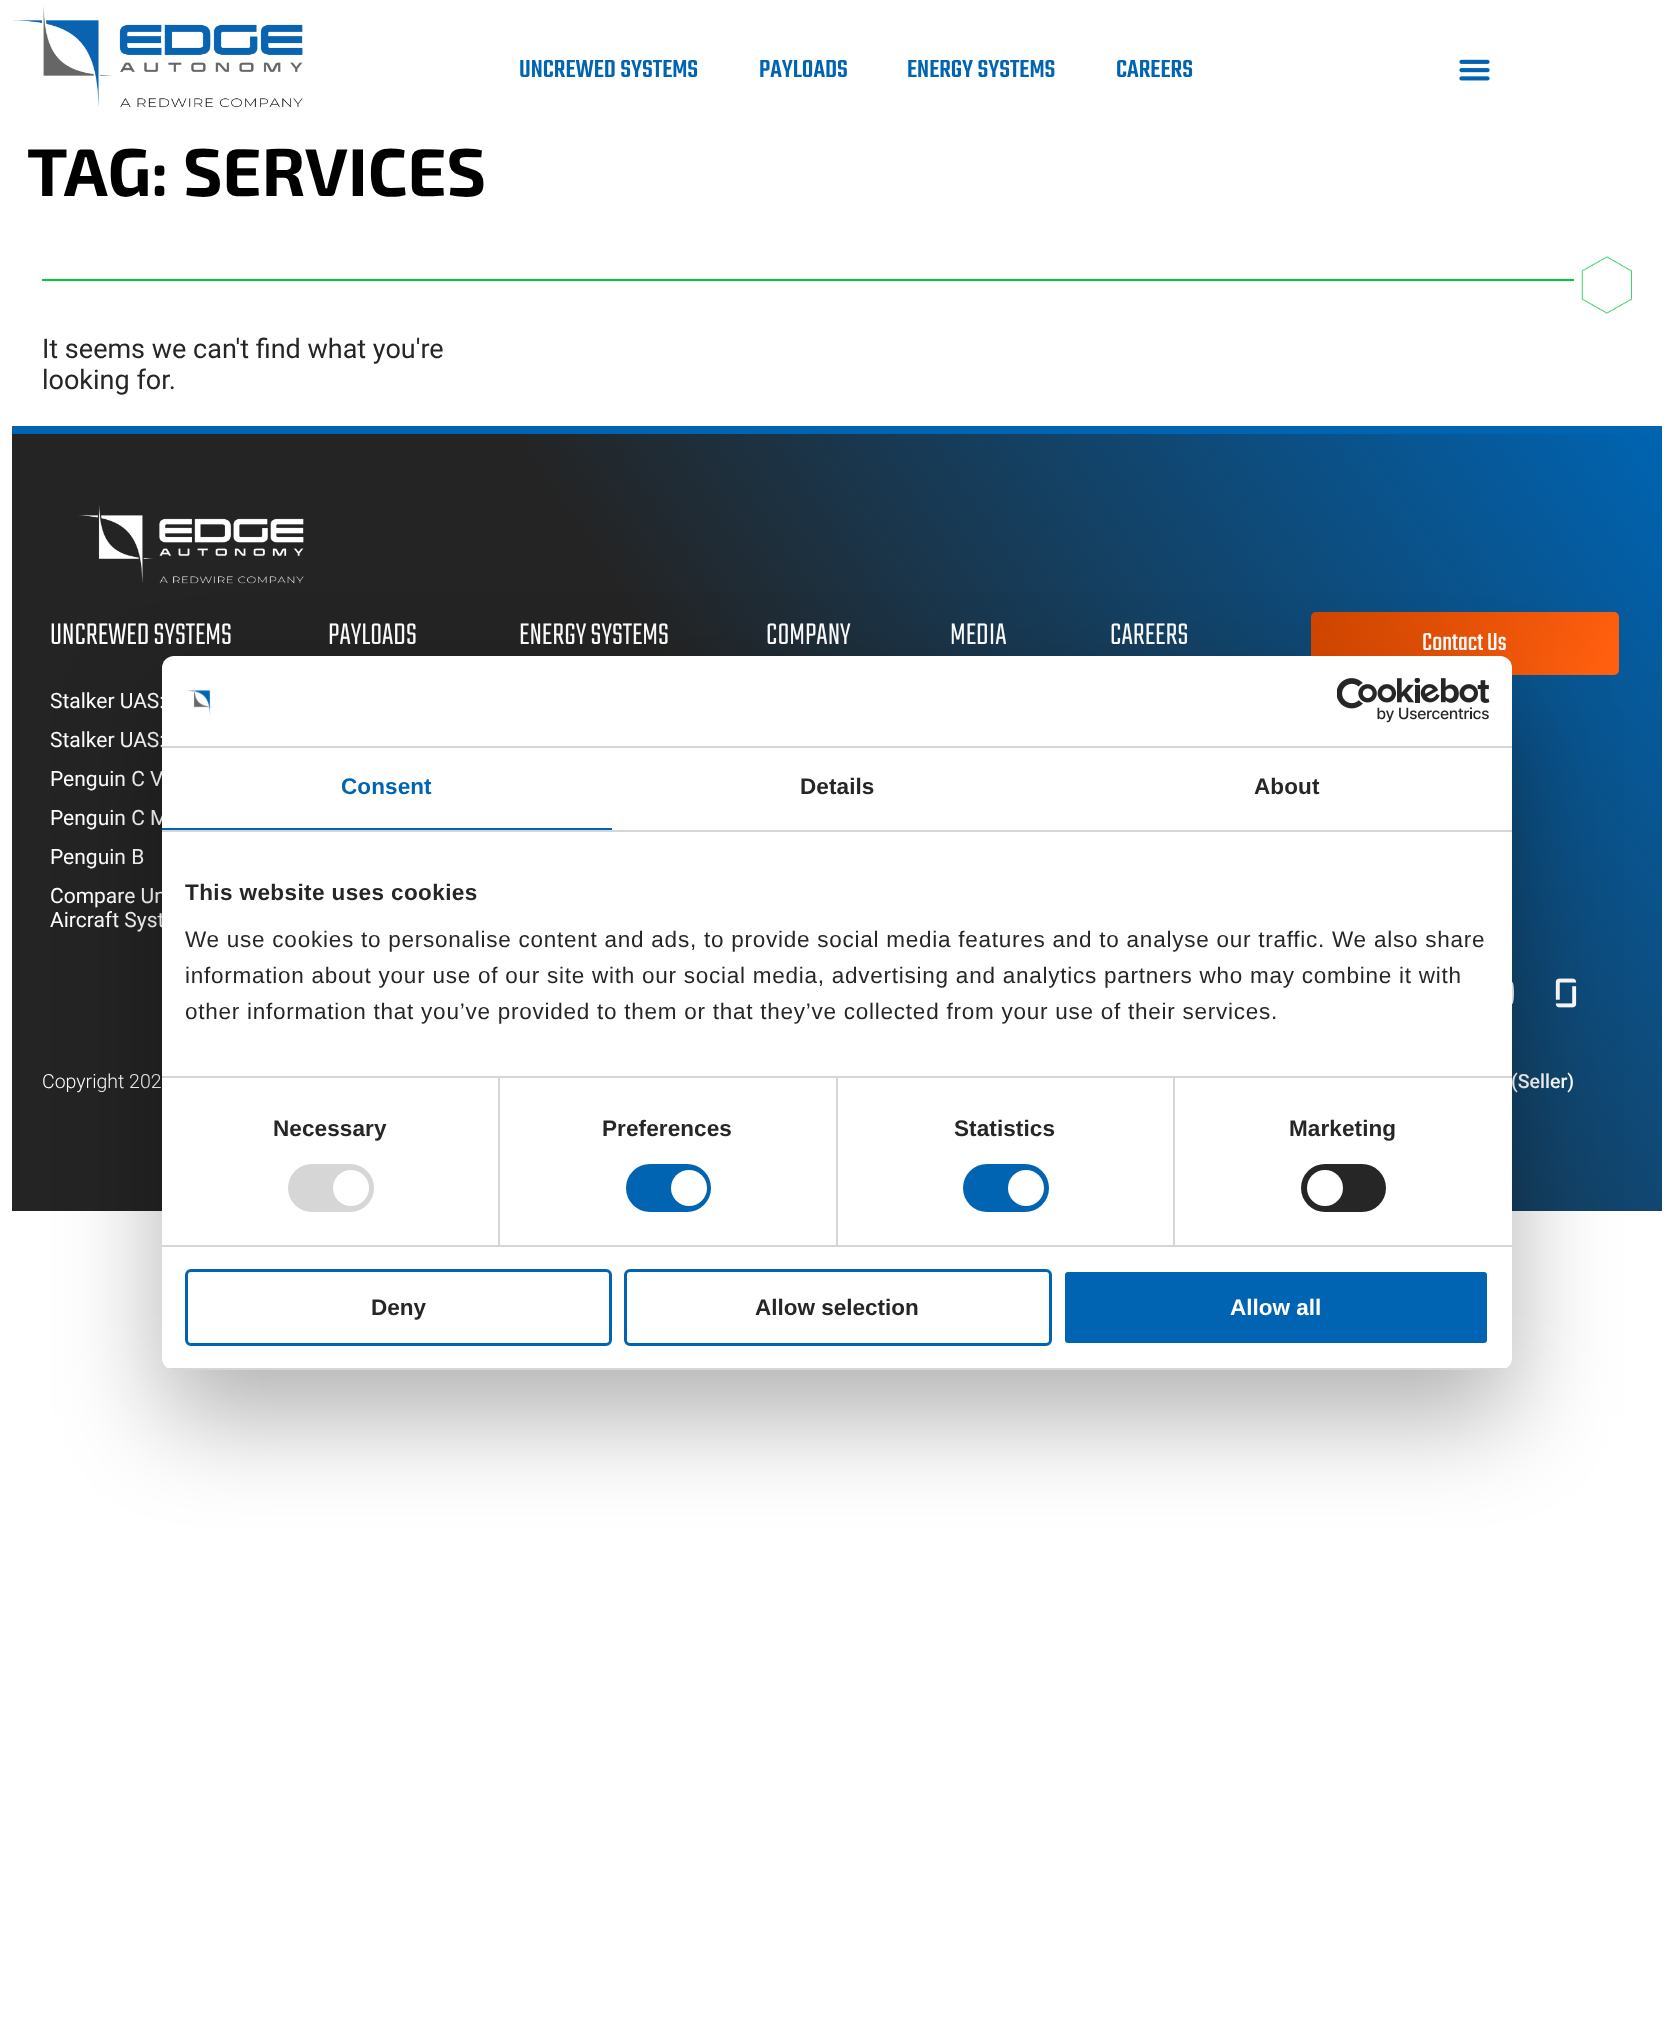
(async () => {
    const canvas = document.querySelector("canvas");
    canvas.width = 1673;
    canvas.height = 2023;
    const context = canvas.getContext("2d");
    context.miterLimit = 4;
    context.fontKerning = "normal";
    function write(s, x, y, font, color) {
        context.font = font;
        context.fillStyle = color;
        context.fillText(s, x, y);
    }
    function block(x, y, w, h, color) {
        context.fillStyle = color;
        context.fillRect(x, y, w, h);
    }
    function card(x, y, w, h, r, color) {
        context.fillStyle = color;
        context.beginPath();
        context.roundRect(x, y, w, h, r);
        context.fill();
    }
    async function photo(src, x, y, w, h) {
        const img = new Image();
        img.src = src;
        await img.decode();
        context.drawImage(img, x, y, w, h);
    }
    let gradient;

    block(0, 0, 1673, 2023, "rgb(255, 255, 255)");
    await photo("media/1.png", 13, 6, 290, 102);
    write("UNCREWED SYSTEMS", 519, 77, "500 27px Teko", "rgb(0, 100, 178)");
    write("PAYLOADS", 759, 77, "500 27px Teko", "rgb(0, 100, 178)");
    write("ENERGY SYSTEMS", 907, 77, "500 27px Teko", "rgb(0, 100, 178)");
    write("CAREERS", 1116, 77, "500 27px Teko", "rgb(0, 100, 178)");
    await photo("media/2.png", 1459, 59, 31, 22);
    write("TAG: SERVICES", 27, 196, "bold 67.5px 'Exo 2'", "rgb(0, 0, 0)");
    await photo("media/3.png", 1581, 256, 51, 58);
    block(42, 279, 1532, 2, "rgb(0, 200, 59)");
    write("It seems we can't find what you're", 42, 358, "27px Roboto", "rgb(38, 38, 38)");
    write("looking for.", 42, 389, "27px Roboto", "rgb(38, 38, 38)");
    gradient = context.createLinearGradient(90, 1326, 1584, 318);
    gradient.addColorStop(0.47, "rgb(36, 36, 36)");
    gradient.addColorStop(1, "rgb(0, 100, 178)");
    context.fillStyle = gradient;
    context.fillRect(12, 434, 1650, 777);
    block(12, 426, 1650, 8, "rgb(0, 100, 178)");
    await photo("media/4.png", 77, 505, 227, 79);
    write("UNCREWED SYSTEMS", 50, 644, "300 33px Teko", "rgb(255, 255, 255)");
    write("Stalker UAS:", 50, 708, "21px Roboto", "rgb(255, 255, 255)");
    write("Stalker UAS:", 50, 747, "21px Roboto", "rgb(255, 255, 255)");
    write("Penguin C V", 50, 786, "21px Roboto", "rgb(255, 255, 255)");
    write("Penguin C M", 50, 825, "21px Roboto", "rgb(255, 255, 255)");
    write("Penguin B", 50, 864, "21px Roboto", "rgb(255, 255, 255)");
    write("Compare Un", 50, 903, "21px Roboto", "rgb(255, 255, 255)");
    write("Aircraft Syst", 50, 927, "21px Roboto", "rgb(255, 255, 255)");
    write("PAYLOADS", 328, 644, "300 33px Teko", "rgb(255, 255, 255)");
    write("ENERGY SYSTEMS", 519, 644, "300 33px Teko", "rgb(255, 255, 255)");
    write("COMPANY", 766, 644, "300 33px Teko", "rgb(255, 255, 255)");
    write("MEDIA", 950, 644, "300 33px Teko", "rgb(255, 255, 255)");
    write("CAREERS", 1110, 644, "300 33px Teko", "rgb(255, 255, 255)");
    gradient = context.createLinearGradient(1359, 555, 1570, 732);
    gradient.addColorStop(0, "rgb(209, 70, 0)");
    gradient.addColorStop(0.92, "rgb(255, 95, 15)");
    context.fillStyle = gradient;
    context.beginPath();
    context.roundRect(1311, 612, 308, 63, 5);
    context.fill();
    write("Contact Us", 1422, 650, "27px Teko", "rgb(255, 255, 255)");
    await photo("media/5.png", 1512, 981, 2, 24);
    await photo("media/6.png", 1555, 978, 22, 30);
    write("Copyright 202", 42, 1088, "300 19.5px Roboto", "rgb(255, 255, 255)");
    write("(Seller)", 1511, 1088, "500 19.5px Roboto", "rgb(255, 255, 255)");
    context.fillStyle = "rgba(0, 0, 0, 0.3)";
    context.filter = "blur(51px)";
    context.beginPath();
    context.roundRect(162, 704, 1350, 714, 12);
    context.fill();
    context.filter = "none";
    card(162, 656, 1350, 714, 12, "rgb(255, 255, 255)");
    block(162, 746, 1350, 2, "rgb(214, 214, 214)");
    await photo("media/7.png", 186, 687, 27, 28);
    await photo("media/8.png", 1337, 678, 153, 45);
    block(162, 830, 1350, 2, "rgb(214, 214, 214)");
    block(162, 828, 450, 2, "rgb(0, 100, 178)");
    context.letterSpacing = "0.1px";
    write("Consent", 341, 794, "bold 22.5px Liberation Sans", "rgb(0, 100, 178)");
    write("Details", 800, 794, "bold 22.5px Liberation Sans", "rgb(38, 38, 38)");
    write("About", 1254, 794, "bold 22.5px Liberation Sans", "rgb(38, 38, 38)");
    block(498, 1077, 2, 168, "rgb(214, 214, 214)");
    block(836, 1077, 2, 168, "rgb(214, 214, 214)");
    block(1173, 1077, 2, 168, "rgb(214, 214, 214)");
    block(162, 1076, 1350, 2, "rgb(214, 214, 214)");
    context.letterSpacing = "0.4px";
    write("This website uses cookies", 185, 900, "bold 22.5px Liberation Sans", "rgb(38, 38, 38)");
    context.letterSpacing = "0.75px";
    write("We use cookies to personalise content and ads, to provide social media features and to analyse our traffic. We also share", 185, 947, "22.5px Liberation Sans", "rgb(38, 38, 38)");
    write("information about your use of our site with our social media, advertising and analytics partners who may combine it with", 185, 983, "22.5px Liberation Sans", "rgb(38, 38, 38)");
    write("other information that you’ve provided to them or that they’ve collected from your use of their services.", 185, 1019, "22.5px Liberation Sans", "rgb(38, 38, 38)");
    block(162, 1245, 1350, 2, "rgb(214, 214, 214)");
    context.letterSpacing = "0.1px";
    write("Necessary", 273, 1136, "bold 22.5px Liberation Sans", "rgb(38, 38, 38)");
    card(288, 1164, 86, 48, 24, "rgb(214, 214, 214)");
    context.fillStyle = "rgb(255, 255, 255)";
    context.beginPath();
    context.arc(351, 1188, 18, 0, Math.PI * 2);
    context.fill();
    write("Preferences", 602, 1136, "bold 22.5px Liberation Sans", "rgb(38, 38, 38)");
    card(626, 1164, 85, 48, 24, "rgb(0, 100, 178)");
    context.fillStyle = "rgb(255, 255, 255)";
    context.beginPath();
    context.arc(689, 1188, 18, 0, Math.PI * 2);
    context.fill();
    write("Statistics", 954, 1136, "bold 22.5px Liberation Sans", "rgb(38, 38, 38)");
    card(963, 1164, 86, 48, 24, "rgb(0, 100, 178)");
    context.fillStyle = "rgb(255, 255, 255)";
    context.beginPath();
    context.arc(1026, 1188, 18, 0, Math.PI * 2);
    context.fill();
    write("Marketing", 1289, 1136, "bold 22.5px Liberation Sans", "rgb(38, 38, 38)");
    card(1301, 1164, 85, 48, 24, "rgb(38, 38, 38)");
    context.fillStyle = "rgb(255, 255, 255)";
    context.beginPath();
    context.arc(1325, 1188, 18, 0, Math.PI * 2);
    context.fill();
    context.save();
    context.beginPath();
    context.roundRect(162, 656, 1350, 714, 12);
    context.clip();
    block(162, 1368, 1350, 2, "rgb(214, 214, 214)");
    context.restore();
    context.beginPath();
    context.roundRect(186.5, 1270.5, 424, 74, 4.5);
    context.strokeStyle = "rgb(0, 100, 178)";
    context.lineWidth = 3;
    context.stroke();
    context.letterSpacing = "0px";
    write("Deny", 371, 1315, "bold 22.5px Liberation Sans", "rgb(38, 38, 38)");
    context.beginPath();
    context.roundRect(625.5, 1270.5, 425, 74, 4.5);
    context.stroke();
    write("Allow selection", 755, 1315, "bold 22.5px Liberation Sans", "rgb(38, 38, 38)");
    context.fillStyle = "rgb(0, 100, 178)";
    context.beginPath();
    context.roundRect(1063.5, 1270.5, 425, 74, 4.5);
    context.fill();
    context.strokeStyle = "rgb(255, 255, 255)";
    context.stroke();
    write("Allow all", 1230, 1315, "bold 22.5px Liberation Sans", "rgb(255, 255, 255)");
})();
